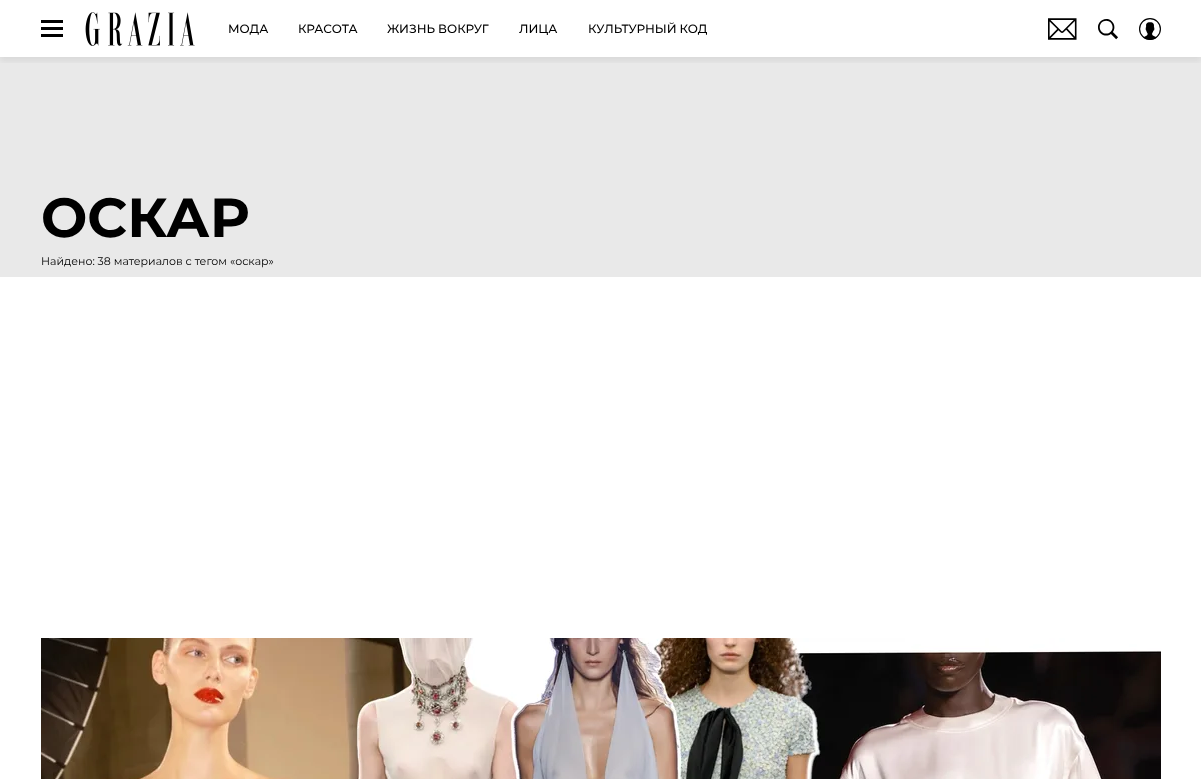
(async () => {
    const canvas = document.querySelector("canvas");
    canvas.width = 1201;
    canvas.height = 779;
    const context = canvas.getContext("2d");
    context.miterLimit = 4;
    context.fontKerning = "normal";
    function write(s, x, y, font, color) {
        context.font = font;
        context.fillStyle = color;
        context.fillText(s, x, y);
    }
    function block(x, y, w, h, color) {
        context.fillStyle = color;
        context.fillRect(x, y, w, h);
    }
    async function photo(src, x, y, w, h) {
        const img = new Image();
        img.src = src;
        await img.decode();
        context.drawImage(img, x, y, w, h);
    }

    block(0, 0, 1201, 779, "rgb(255, 255, 255)");
    block(0, 57, 1201, 220, "rgb(233, 233, 233)");
    context.save();
    context.beginPath();
    context.rect(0, 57, 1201, 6);
    context.clip();
    context.fillStyle = "rgba(0, 0, 0, 0.07)";
    context.filter = "blur(3px)";
    context.beginPath();
    context.rect(0, 4, 1201, 57);
    context.fill();
    context.filter = "none";
    context.restore();
    block(41, 34, 22, 3, "rgb(0, 0, 0)");
    block(41, 20, 22, 3, "rgb(0, 0, 0)");
    block(41, 27, 22, 3, "rgb(0, 0, 0)");
    await photo("media/1.png", 85, 12, 110, 34);
    write("МОДА", 228, 33, "500 12px Montserrat", "rgb(0, 0, 0)");
    write("КРАСОТА", 298, 33, "500 12px Montserrat", "rgb(0, 0, 0)");
    write("ЖИЗНЬ ВОКРУГ", 387, 33, "500 12px Montserrat", "rgb(0, 0, 0)");
    write("ЛИЦА", 519, 33, "500 12px Montserrat", "rgb(0, 0, 0)");
    context.save();
    context.beginPath();
    context.rect(588, 17, 119, 24);
    context.clip();
    write("КУЛЬТУРНЫЙ КОД", 588, 33, "500 12px Montserrat", "rgb(0, 0, 0)");
    context.restore();
    await photo("media/2.png", 1048, 18, 29, 22);
    await photo("media/3.png", 1098, 19, 20, 21);
    await photo("media/4.png", 1139, 18, 22, 22);
    write("ОСКАР", 41, 237, "bold 55px Montserrat", "rgb(0, 0, 0)");
    write("Найдено: 38 материалов с тегом «оскар»", 41, 265, "11px Montserrat", "rgb(0, 0, 0)");
    await photo("media/5.png", 41, 638, 1120, 141);
})();
